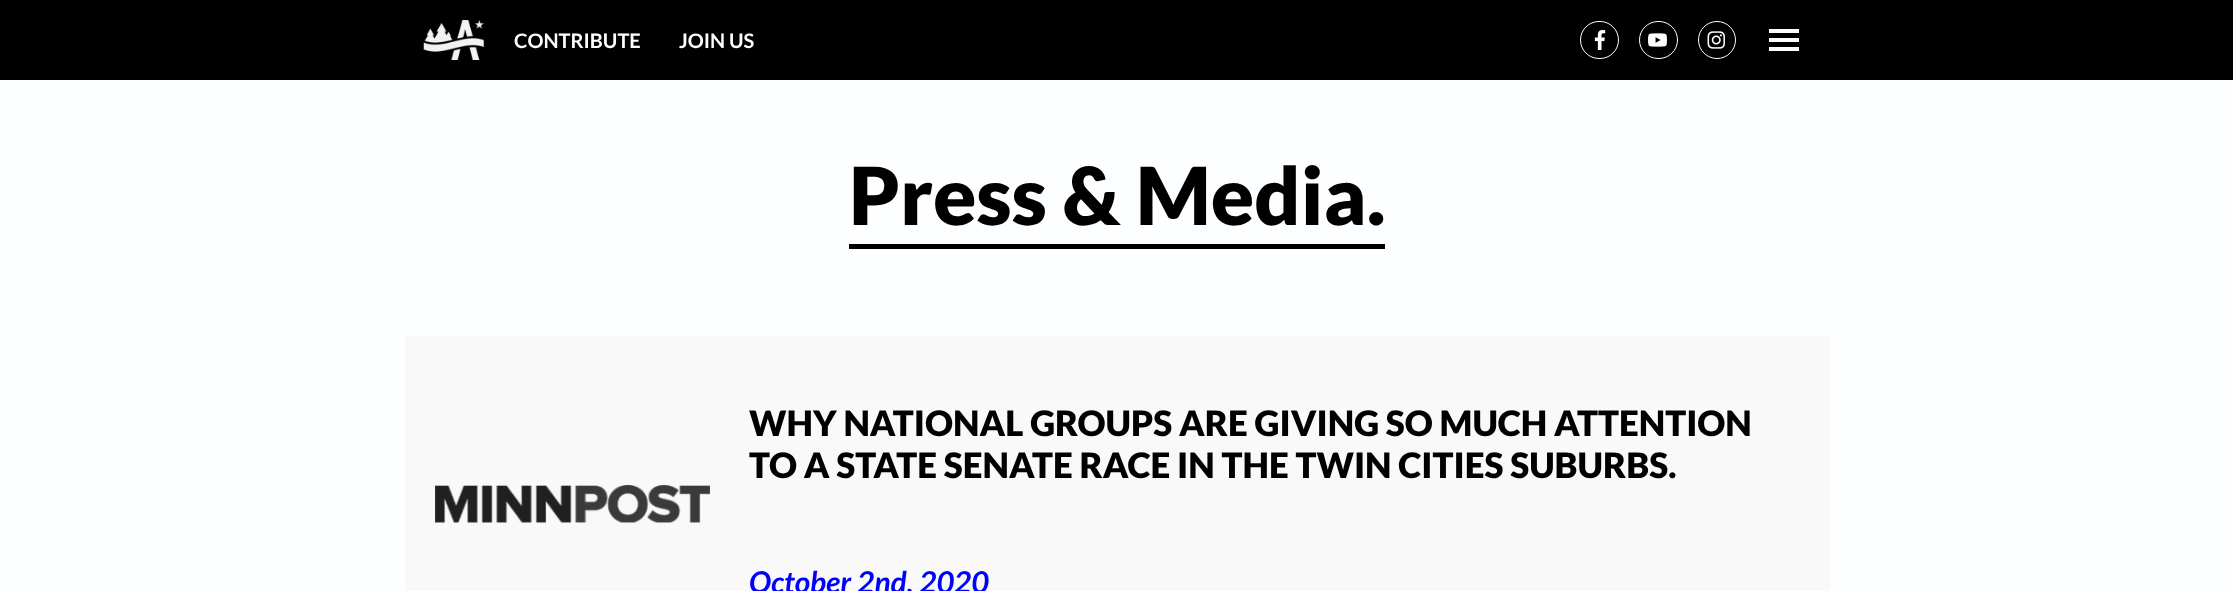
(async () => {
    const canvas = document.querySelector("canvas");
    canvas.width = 2233;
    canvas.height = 591;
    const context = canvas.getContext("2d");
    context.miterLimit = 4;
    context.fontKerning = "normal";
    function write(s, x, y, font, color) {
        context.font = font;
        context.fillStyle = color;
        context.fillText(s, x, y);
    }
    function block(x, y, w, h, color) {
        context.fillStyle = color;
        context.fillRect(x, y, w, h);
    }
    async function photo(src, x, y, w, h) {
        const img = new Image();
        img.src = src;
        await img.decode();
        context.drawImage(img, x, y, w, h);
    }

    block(0, 0, 2233, 591, "rgb(253, 254, 255)");
    block(0, 0, 2233, 80, "rgb(0, 0, 0)");
    await photo("media/1.png", 423, 20, 61, 40);
    write("CONTRIBUTE", 514, 48, "bold 20px Lato", "rgb(253, 254, 255)");
    write("JOIN US", 679, 48, "bold 20px Lato", "rgb(253, 254, 255)");
    context.beginPath();
    context.roundRect(1580.5, 21.5, 38, 37, 18.5);
    context.strokeStyle = "rgb(253, 254, 255)";
    context.stroke();
    await photo("media/2.png", 1594, 30, 12, 20);
    context.beginPath();
    context.roundRect(1639.5, 21.5, 38, 37, 18.5);
    context.stroke();
    await photo("media/3.png", 1648, 33, 19, 14);
    context.beginPath();
    context.arc(1717, 40, 18.5, 0, Math.PI * 2);
    context.stroke();
    await photo("media/4.png", 1707, 31, 18, 18);
    block(1769, 29, 30, 4, "rgb(253, 254, 255)");
    block(1769, 38, 30, 4, "rgb(253, 254, 255)");
    block(1769, 47, 30, 4, "rgb(253, 254, 255)");
    block(849, 244, 536, 5, "rgb(0, 0, 0)");
    write("Press & Media.", 849, 225, "900 80px Lato", "rgb(0, 0, 0)");
    block(405, 336, 1425, 255, "rgb(249, 249, 249)");
    await photo("media/5.png", 435, 485, 275, 38);
    write("WHY NATIONAL GROUPS ARE GIVING SO MUCH ATTENTION", 749, 436, "900 35px Lato", "rgb(0, 0, 0)");
    write("TO A STATE SENATE RACE IN THE TWIN CITIES SUBURBS.", 749, 478, "900 35px Lato", "rgb(0, 0, 0)");
    write("October 2nd, 2020", 749, 593, "italic bold 30px Lato", "rgb(0, 0, 255)");
})();
